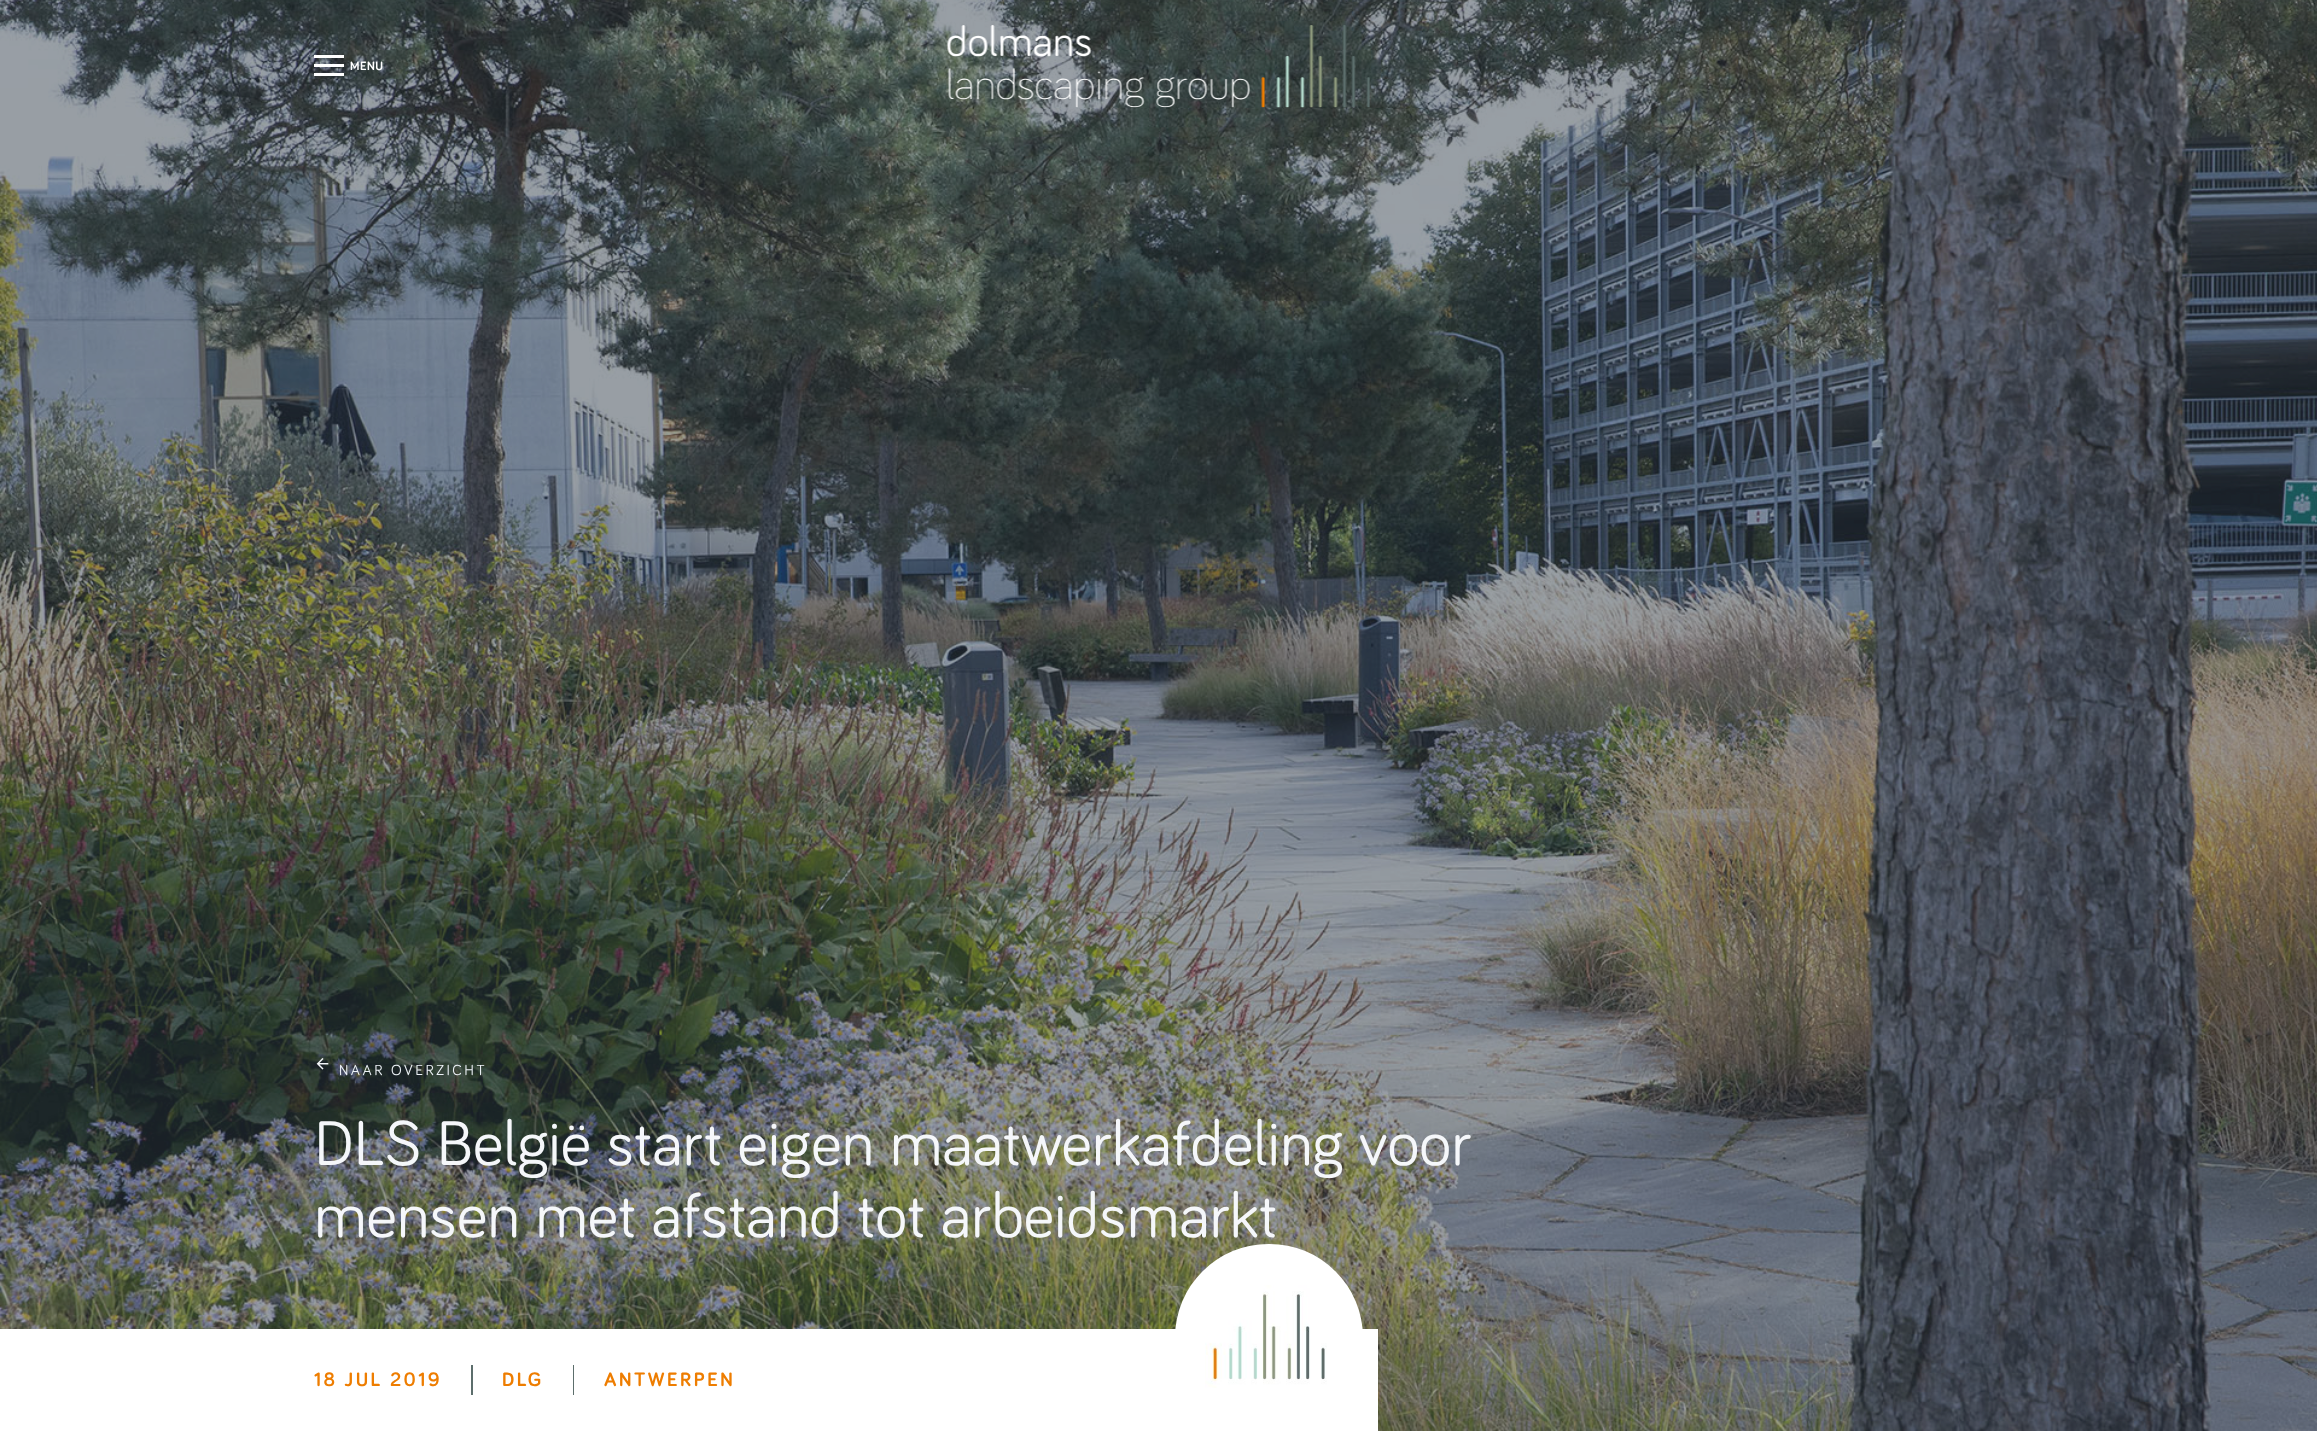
(async () => {
    const canvas = document.querySelector("canvas");
    canvas.width = 2317;
    canvas.height = 1431;
    const context = canvas.getContext("2d");
    context.miterLimit = 4;
    context.fontKerning = "normal";
    function write(s, x, y, font, color) {
        context.font = font;
        context.fillStyle = color;
        context.fillText(s, x, y);
    }
    function block(x, y, w, h, color) {
        context.fillStyle = color;
        context.fillRect(x, y, w, h);
    }
    function card(x, y, w, h, r, color) {
        context.fillStyle = color;
        context.beginPath();
        context.roundRect(x, y, w, h, r);
        context.fill();
    }
    async function photo(src, x, y, w, h) {
        const img = new Image();
        img.src = src;
        await img.decode();
        context.drawImage(img, x, y, w, h);
    }

    block(0, 0, 2317, 1431, "rgb(255, 255, 255)");
    await photo("media/2.png", 0, 0, 2317, 1431);
    block(314, 55, 30, 3, "rgb(255, 255, 255)");
    block(314, 64, 30, 3, "rgb(255, 255, 255)");
    context.letterSpacing = "0.5px";
    write("MENU", 350, 70, "bold 12.5px Barlow", "rgb(255, 255, 255)");
    block(314, 73, 30, 3, "rgb(255, 255, 255)");
    await photo("media/1.png", 947, 25, 423, 83);
    await photo("media/3.png", 316, 1058, 13, 12);
    context.letterSpacing = "2.5px";
    write("NAAR OVERZICHT", 339, 1075, "15px Barlow", "rgb(237, 242, 247)");
    context.letterSpacing = "0px";
    write("DLS België start eigen maatwerkafdeling voor", 314, 1165, "65px Barlow", "rgb(245, 247, 250)");
    write("mensen met afstand tot arbeidsmarkt", 314, 1237, "65px Barlow", "rgb(245, 247, 250)");
    block(0, 1329, 1378, 102, "rgb(255, 255, 255)");
    context.letterSpacing = "2.5px";
    write("18 JUL 2019", 314, 1386, "bold 20px Barlow", "rgb(238, 125, 0)");
    block(471, 1365, 2, 30, "rgb(92, 110, 108)");
    write("DLG", 502, 1386, "bold 20px Barlow", "rgb(238, 125, 0)");
    block(573, 1365, 1, 30, "rgb(92, 110, 108)");
    write("ANTWERPEN", 604, 1386, "bold 20px Barlow", "rgb(238, 125, 0)");
    card(1175, 1244, 188, 187, 93.5, "rgb(255, 255, 255)");
    await photo("media/4.png", 1205, 1285, 122, 103);
})();
